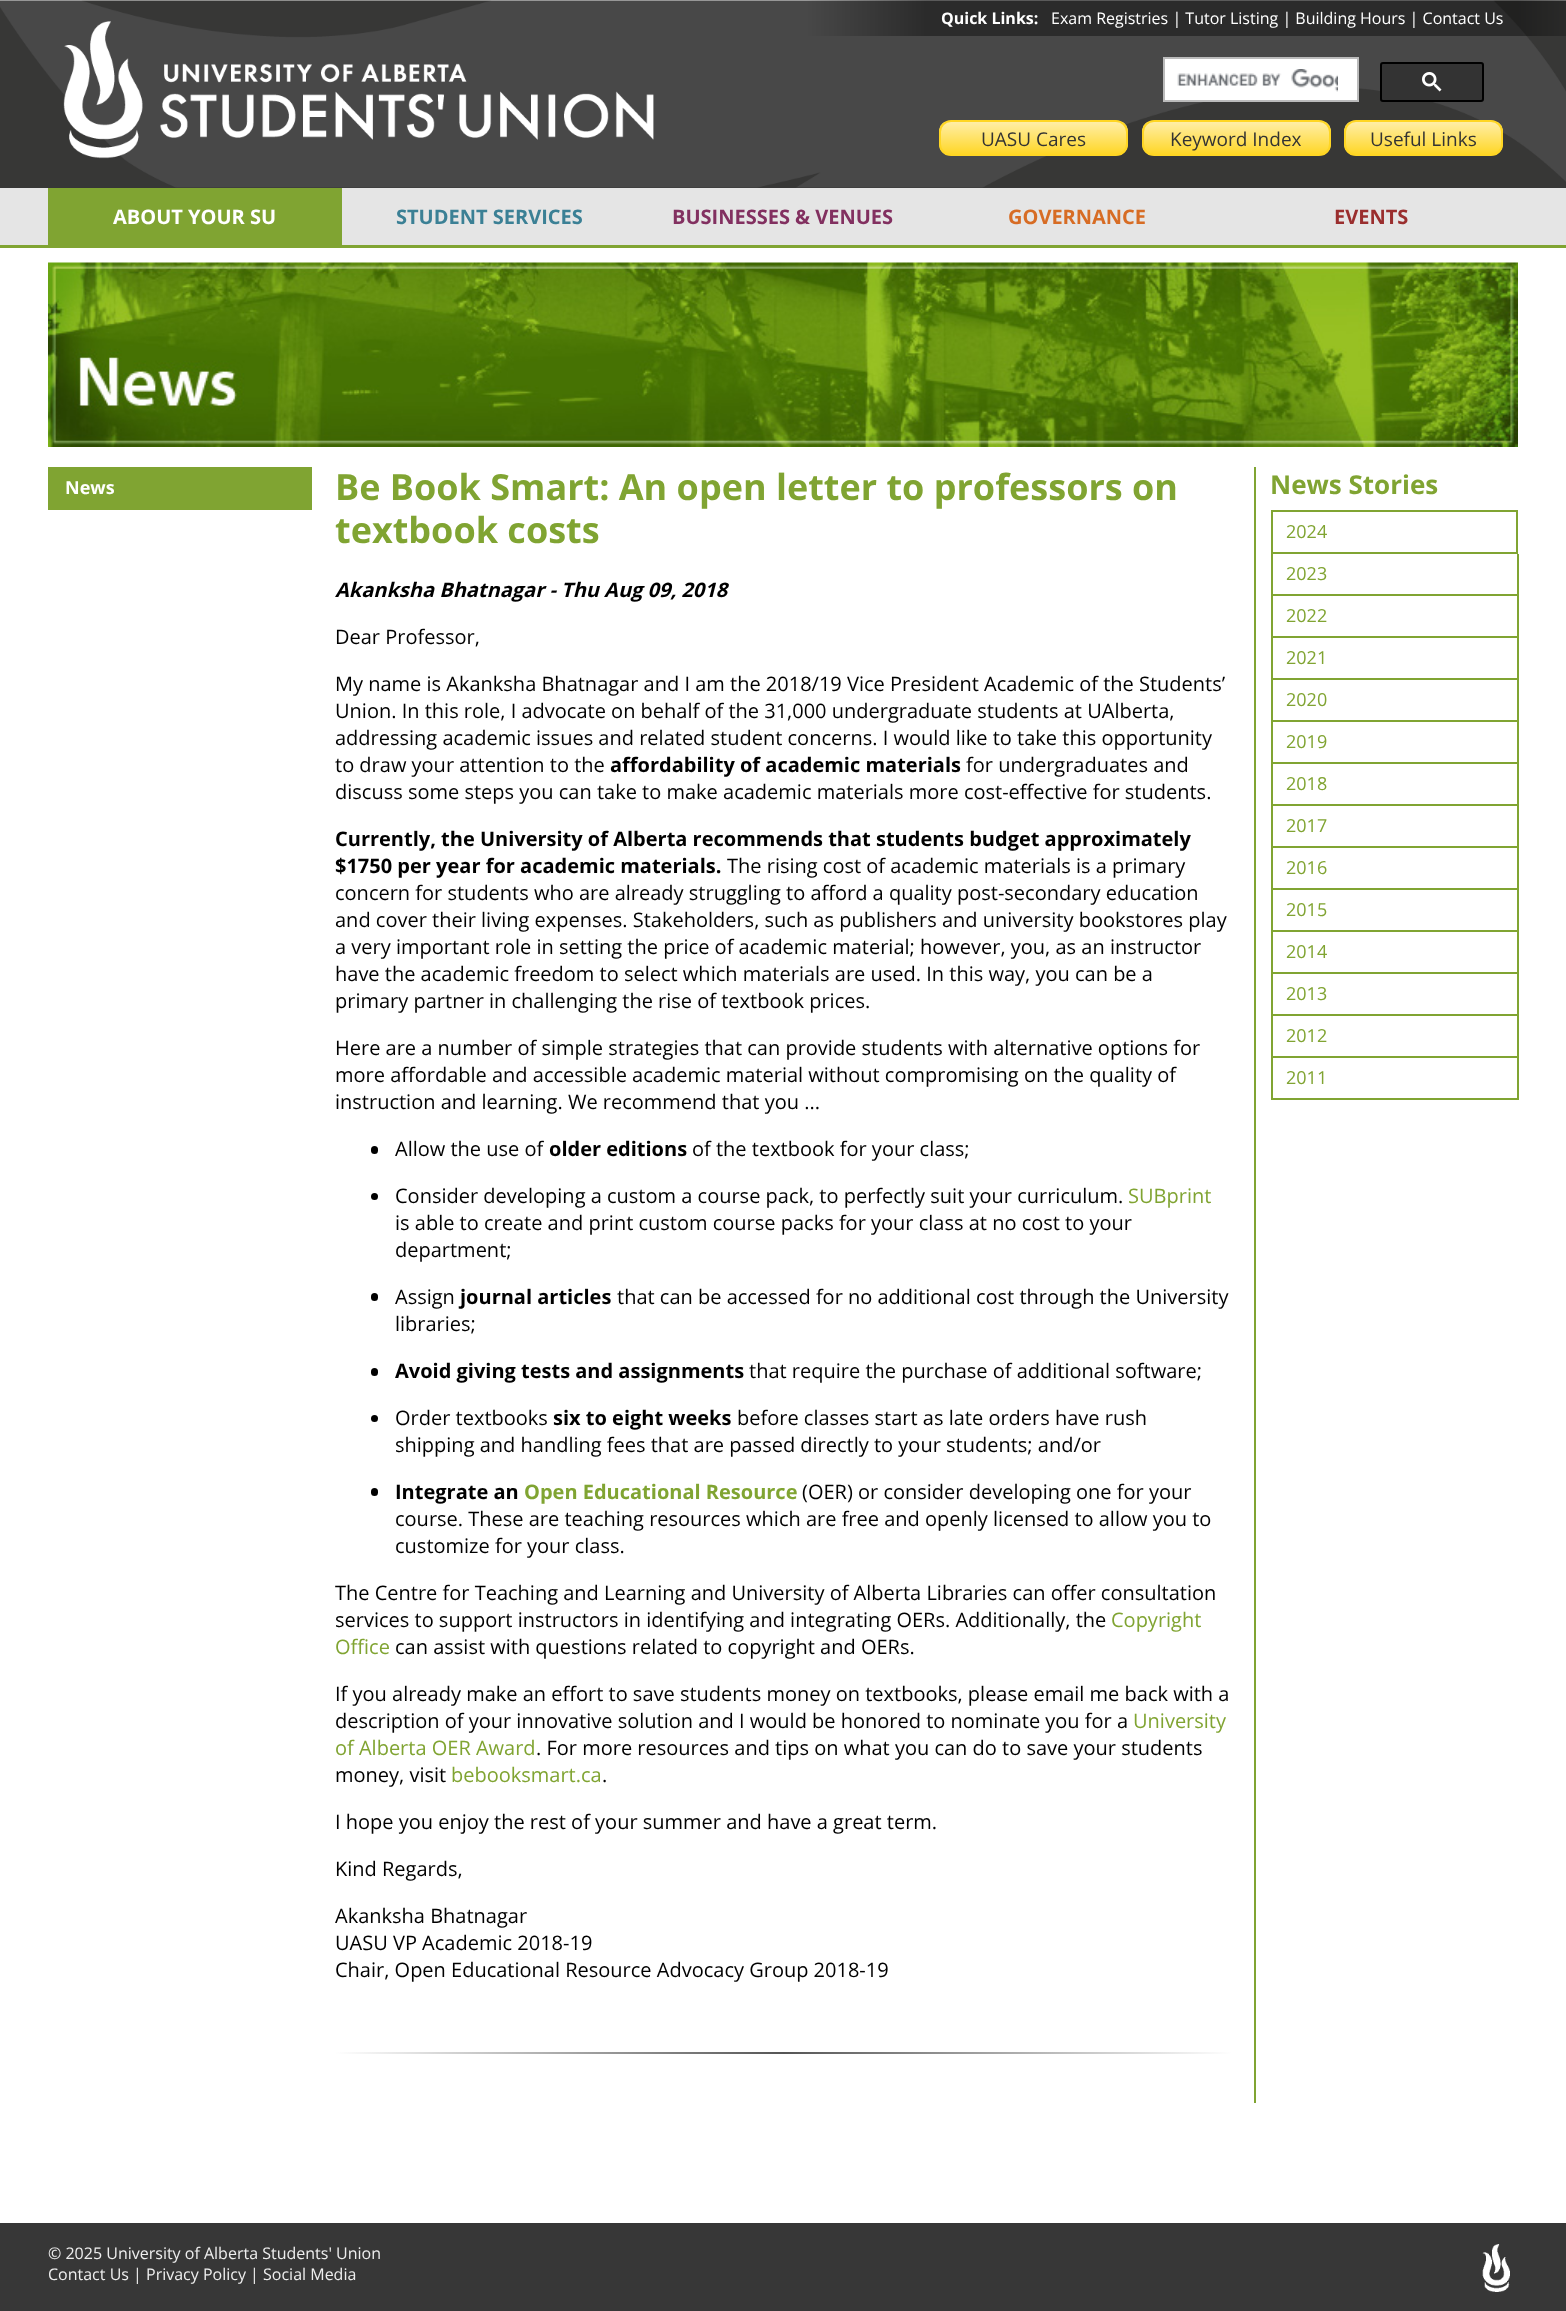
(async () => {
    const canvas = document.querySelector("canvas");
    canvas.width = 1566;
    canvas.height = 2311;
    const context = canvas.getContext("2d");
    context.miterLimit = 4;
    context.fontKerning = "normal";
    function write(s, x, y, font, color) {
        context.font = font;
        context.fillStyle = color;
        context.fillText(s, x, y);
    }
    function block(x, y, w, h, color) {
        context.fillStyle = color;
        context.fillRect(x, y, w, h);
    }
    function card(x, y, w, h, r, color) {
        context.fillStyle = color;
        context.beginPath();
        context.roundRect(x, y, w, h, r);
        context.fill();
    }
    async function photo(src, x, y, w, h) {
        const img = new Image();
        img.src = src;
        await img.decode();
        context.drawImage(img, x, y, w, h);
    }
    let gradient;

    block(0, 0, 1566, 2311, "rgb(229, 229, 229)");
    block(0, 187, 1566, 1, "rgb(55, 55, 55)");
    await photo("media/1.png", 0, 0, 1566, 188);
    block(926, 0, 592, 36, "rgba(0, 0, 0, 0.4)");
    write("Quick Links:", 941, 24, "bold 16px Open Sans", "rgb(255, 255, 255)");
    write("Exam Registries | Tutor Listing | Building Hours | Contact Us", 1051, 24, "16px Open Sans", "rgb(255, 255, 255)");
    context.beginPath();
    context.rect(1164, 58, 194, 43);
    context.fill();
    context.strokeStyle = "rgb(187, 187, 187)";
    context.lineWidth = 2;
    context.stroke();
    await photo("media/2.png", 1177, 69, 161, 23);
    context.fillStyle = "rgb(51, 51, 51)";
    context.beginPath();
    context.roundRect(1381, 63, 102, 38, 2);
    context.fill();
    context.strokeStyle = "rgb(0, 0, 0)";
    context.stroke();
    await photo("media/3.png", 1422, 72, 20, 20);
    context.save();
    context.beginPath();
    context.roundRect(939, 120, 189, 36, 12);
    context.clip();
    gradient = context.createLinearGradient(1034, 122, 1034, 155);
    gradient.addColorStop(0, "rgb(255, 238, 167)");
    gradient.addColorStop(1, "rgb(255, 214, 35)");
    context.fillStyle = gradient;
    context.fillRect(939, 122, 189, 33);
    context.restore();
    context.beginPath();
    context.roundRect(940, 121, 187, 34, 11);
    context.strokeStyle = "rgb(255, 214, 35)";
    context.stroke();
    write("UASU Cares", 981, 146, "19px Open Sans", "rgb(51, 51, 51)");
    context.save();
    context.beginPath();
    context.roundRect(1142, 120, 189, 36, 12);
    context.clip();
    gradient = context.createLinearGradient(1236, 122, 1236, 155);
    gradient.addColorStop(0, "rgb(255, 238, 167)");
    gradient.addColorStop(1, "rgb(255, 214, 35)");
    context.fillStyle = gradient;
    context.fillRect(1142, 122, 189, 33);
    context.restore();
    context.beginPath();
    context.roundRect(1143, 121, 187, 34, 11);
    context.stroke();
    write("Keyword Index", 1170, 146, "19px Open Sans", "rgb(51, 51, 51)");
    context.save();
    context.beginPath();
    context.roundRect(1344, 120, 159, 36, 12);
    context.clip();
    gradient = context.createLinearGradient(1424, 122, 1424, 155);
    gradient.addColorStop(0, "rgb(255, 238, 167)");
    gradient.addColorStop(1, "rgb(255, 214, 35)");
    context.fillStyle = gradient;
    context.fillRect(1344, 122, 159, 33);
    context.restore();
    context.beginPath();
    context.roundRect(1345, 121, 157, 34, 11);
    context.stroke();
    write("Useful Links", 1370, 146, "19px Open Sans", "rgb(51, 51, 51)");
    block(0, 245, 1566, 3, "rgb(128, 164, 50)");
    block(48, 188, 294, 57, "rgb(128, 164, 50)");
    write("ABOUT YOUR SU", 113, 224, "bold 20px Open Sans", "rgb(255, 255, 255)");
    write("STUDENT SERVICES", 396, 224, "bold 20px Open Sans", "rgb(59, 128, 149)");
    write("BUSINESSES & VENUES", 672, 224, "bold 20px Open Sans", "rgb(130, 48, 96)");
    write("GOVERNANCE", 1008, 224, "bold 20px Open Sans", "rgb(215, 108, 36)");
    write("EVENTS", 1334, 224, "bold 20px Open Sans", "rgb(154, 46, 46)");
    block(0, 248, 1566, 1975, "rgb(255, 255, 255)");
    await photo("media/4.png", 48, 262, 1470, 185);
    context.strokeStyle = "rgb(128, 164, 50)";
    context.strokeRect(49, 468, 262, 41);
    block(50, 469, 260, 39, "rgb(128, 164, 50)");
    write("News", 65, 494, "bold 18px Open Sans", "rgb(255, 255, 255)");
    block(1254, 467, 2, 1636, "rgb(128, 164, 50)");
    write("Be Book Smart: An open letter to professors on", 335, 500, "bold 36px Open Sans", "rgb(128, 164, 50)");
    write("textbook costs", 335, 543, "bold 36px Open Sans", "rgb(128, 164, 50)");
    write("Akanksha Bhatnagar - Thu Aug 09, 2018", 335, 597, "italic bold 20px Open Sans", "rgb(0, 0, 0)");
    write("Dear Professor,", 335, 644, "20px Open Sans", "rgb(0, 0, 0)");
    write("My name is Akanksha Bhatnagar and I am the 2018/19 Vice President Academic of the Students’", 335, 691, "20px Open Sans", "rgb(0, 0, 0)");
    write("Union. In this role, I advocate on behalf of the 31,000 undergraduate students at UAlberta,", 335, 718, "20px Open Sans", "rgb(0, 0, 0)");
    write("addressing academic issues and related student concerns. I would like to take this opportunity", 335, 745, "20px Open Sans", "rgb(0, 0, 0)");
    write("to draw your attention to the", 335, 772, "20px Open Sans", "rgb(0, 0, 0)");
    write("affordability of academic materials", 610, 772, "bold 20px Open Sans", "rgb(0, 0, 0)");
    write("for undergraduates and", 966, 772, "20px Open Sans", "rgb(0, 0, 0)");
    write("discuss some steps you can take to make academic materials more cost-effective for students.", 335, 799, "20px Open Sans", "rgb(0, 0, 0)");
    write("Currently, the University of Alberta recommends that students budget approximately", 335, 846, "bold 20px Open Sans", "rgb(0, 0, 0)");
    write("$1750 per year for academic materials.", 335, 873, "bold 20px Open Sans", "rgb(0, 0, 0)");
    write("The rising cost of academic materials is a primary", 727, 873, "20px Open Sans", "rgb(0, 0, 0)");
    write("concern for students who are already struggling to afford a quality post-secondary education", 335, 900, "20px Open Sans", "rgb(0, 0, 0)");
    write("and cover their living expenses. Stakeholders, such as publishers and university bookstores play", 335, 927, "20px Open Sans", "rgb(0, 0, 0)");
    write("a very important role in setting the price of academic material; however, you, as an instructor", 335, 954, "20px Open Sans", "rgb(0, 0, 0)");
    write("have the academic freedom to select which materials are used. In this way, you can be a", 335, 981, "20px Open Sans", "rgb(0, 0, 0)");
    write("primary partner in challenging the rise of textbook prices.", 335, 1008, "20px Open Sans", "rgb(0, 0, 0)");
    write("Here are a number of simple strategies that can provide students with alternative options for", 335, 1055, "20px Open Sans", "rgb(0, 0, 0)");
    write("more affordable and accessible academic material without compromising on the quality of", 335, 1082, "20px Open Sans", "rgb(0, 0, 0)");
    write("instruction and learning. We recommend that you ...", 335, 1109, "20px Open Sans", "rgb(0, 0, 0)");
    card(371, 1146, 7, 8, 3.5, "rgb(0, 0, 0)");
    write("Allow the use of", 395, 1156, "20px Open Sans", "rgb(0, 0, 0)");
    write("older editions", 549, 1156, "bold 20px Open Sans", "rgb(0, 0, 0)");
    write("of the textbook for your class;", 692, 1156, "20px Open Sans", "rgb(0, 0, 0)");
    context.beginPath();
    context.arc(374.5, 1196.5, 3.5, 0, Math.PI * 2);
    context.fill();
    write("Consider developing a custom a course pack, to perfectly suit your curriculum.", 395, 1203, "20px Open Sans", "rgb(0, 0, 0)");
    write("SUBprint", 1128, 1203, "20px Open Sans", "rgb(128, 164, 50)");
    write("is able to create and print custom course packs for your class at no cost to your", 395, 1230, "20px Open Sans", "rgb(0, 0, 0)");
    write("department;", 395, 1257, "20px Open Sans", "rgb(0, 0, 0)");
    card(371, 1293, 7, 8, 3.5, "rgb(0, 0, 0)");
    write("Assign", 395, 1304, "20px Open Sans", "rgb(0, 0, 0)");
    write("journal articles", 460, 1304, "bold 20px Open Sans", "rgb(0, 0, 0)");
    write("that can be accessed for no additional cost through the University", 617, 1304, "20px Open Sans", "rgb(0, 0, 0)");
    write("libraries;", 395, 1331, "20px Open Sans", "rgb(0, 0, 0)");
    card(371, 1368, 7, 8, 3.5, "rgb(0, 0, 0)");
    write("Avoid giving tests and assignments", 395, 1378, "bold 20px Open Sans", "rgb(0, 0, 0)");
    write("that require the purchase of additional software;", 749, 1378, "20px Open Sans", "rgb(0, 0, 0)");
    context.beginPath();
    context.arc(374.5, 1418.5, 3.5, 0, Math.PI * 2);
    context.fill();
    write("Order textbooks", 395, 1425, "20px Open Sans", "rgb(0, 0, 0)");
    write("six to eight weeks", 553, 1425, "bold 20px Open Sans", "rgb(0, 0, 0)");
    write("before classes start as late orders have rush", 737, 1425, "20px Open Sans", "rgb(0, 0, 0)");
    write("shipping and handling fees that are passed directly to your students; and/or", 395, 1452, "20px Open Sans", "rgb(0, 0, 0)");
    card(371, 1488, 7, 8, 3.5, "rgb(0, 0, 0)");
    write("Integrate an", 395, 1499, "bold 20px Open Sans", "rgb(0, 0, 0)");
    write("Open Educational Resource", 524, 1499, "bold 20px Open Sans", "rgb(128, 164, 50)");
    write("(OER) or consider developing one for your", 802, 1499, "20px Open Sans", "rgb(0, 0, 0)");
    write("course. These are teaching resources which are free and openly licensed to allow you to", 395, 1526, "20px Open Sans", "rgb(0, 0, 0)");
    write("customize for your class.", 395, 1553, "20px Open Sans", "rgb(0, 0, 0)");
    write("The Centre for Teaching and Learning and University of Alberta Libraries can offer consultation", 335, 1600, "20px Open Sans", "rgb(0, 0, 0)");
    write("services to support instructors in identifying and integrating OERs. Additionally, the", 335, 1627, "20px Open Sans", "rgb(0, 0, 0)");
    write("Copyright", 1111, 1627, "20px Open Sans", "rgb(128, 164, 50)");
    write("Office", 335, 1654, "20px Open Sans", "rgb(128, 164, 50)");
    write("can assist with questions related to copyright and OERs.", 395, 1654, "20px Open Sans", "rgb(0, 0, 0)");
    write("If you already make an effort to save students money on textbooks, please email me back with a", 335, 1701, "20px Open Sans", "rgb(0, 0, 0)");
    write("description of your innovative solution and I would be honored to nominate you for a", 335, 1728, "20px Open Sans", "rgb(0, 0, 0)");
    write("University", 1133, 1728, "20px Open Sans", "rgb(128, 164, 50)");
    write("of Alberta OER Award", 335, 1755, "20px Open Sans", "rgb(128, 164, 50)");
    write(". For more resources and tips on what you can do to save your students", 536, 1755, "20px Open Sans", "rgb(0, 0, 0)");
    write("money, visit", 335, 1782, "20px Open Sans", "rgb(0, 0, 0)");
    write("bebooksmart.ca", 451, 1782, "20px Open Sans", "rgb(128, 164, 50)");
    write(".", 602, 1782, "20px Open Sans", "rgb(0, 0, 0)");
    write("I hope you enjoy the rest of your summer and have a great term.", 335, 1829, "20px Open Sans", "rgb(0, 0, 0)");
    write("Kind Regards,", 335, 1876, "20px Open Sans", "rgb(0, 0, 0)");
    write("Akanksha Bhatnagar", 335, 1923, "20px Open Sans", "rgb(0, 0, 0)");
    write("UASU VP Academic 2018-19", 335, 1950, "20px Open Sans", "rgb(0, 0, 0)");
    write("Chair, Open Educational Resource Advocacy Group 2018-19", 335, 1977, "20px Open Sans", "rgb(0, 0, 0)");
    gradient = context.createLinearGradient(335, 2053, 1232, 2053);
    gradient.addColorStop(0, "rgb(255, 255, 255)");
    gradient.addColorStop(0.5, "rgb(85, 85, 85)");
    gradient.addColorStop(1, "rgb(255, 255, 255)");
    context.fillStyle = gradient;
    context.fillRect(335, 2052, 897, 2);
    write("News Stories", 1270, 494, "bold 26px Open Sans", "rgb(128, 164, 50)");
    context.strokeRect(1272, 511, 245, 42);
    write("2024", 1286, 538, "18px Open Sans", "rgb(128, 164, 50)");
    block(1517, 554, 2, 546, "rgb(128, 164, 50)");
    block(1271, 594, 247, 2, "rgb(128, 164, 50)");
    block(1271, 554, 2, 42, "rgb(128, 164, 50)");
    write("2023", 1286, 580, "18px Open Sans", "rgb(128, 164, 50)");
    block(1271, 636, 247, 2, "rgb(128, 164, 50)");
    block(1271, 596, 2, 42, "rgb(128, 164, 50)");
    write("2022", 1286, 622, "18px Open Sans", "rgb(128, 164, 50)");
    block(1271, 678, 247, 2, "rgb(128, 164, 50)");
    block(1271, 638, 2, 42, "rgb(128, 164, 50)");
    write("2021", 1286, 664, "18px Open Sans", "rgb(128, 164, 50)");
    block(1271, 720, 247, 2, "rgb(128, 164, 50)");
    block(1271, 680, 2, 42, "rgb(128, 164, 50)");
    write("2020", 1286, 706, "18px Open Sans", "rgb(128, 164, 50)");
    block(1271, 762, 247, 2, "rgb(128, 164, 50)");
    block(1271, 722, 2, 42, "rgb(128, 164, 50)");
    write("2019", 1286, 748, "18px Open Sans", "rgb(128, 164, 50)");
    block(1271, 804, 247, 2, "rgb(128, 164, 50)");
    block(1271, 764, 2, 42, "rgb(128, 164, 50)");
    write("2018", 1286, 790, "18px Open Sans", "rgb(128, 164, 50)");
    block(1271, 846, 247, 2, "rgb(128, 164, 50)");
    block(1271, 806, 2, 42, "rgb(128, 164, 50)");
    write("2017", 1286, 832, "18px Open Sans", "rgb(128, 164, 50)");
    block(1271, 888, 247, 2, "rgb(128, 164, 50)");
    block(1271, 848, 2, 42, "rgb(128, 164, 50)");
    write("2016", 1286, 874, "18px Open Sans", "rgb(128, 164, 50)");
    block(1271, 930, 247, 2, "rgb(128, 164, 50)");
    block(1271, 890, 2, 42, "rgb(128, 164, 50)");
    write("2015", 1286, 916, "18px Open Sans", "rgb(128, 164, 50)");
    block(1271, 972, 247, 2, "rgb(128, 164, 50)");
    block(1271, 932, 2, 42, "rgb(128, 164, 50)");
    write("2014", 1286, 958, "18px Open Sans", "rgb(128, 164, 50)");
    block(1271, 1014, 247, 2, "rgb(128, 164, 50)");
    block(1271, 974, 2, 42, "rgb(128, 164, 50)");
    write("2013", 1286, 1000, "18px Open Sans", "rgb(128, 164, 50)");
    block(1271, 1056, 247, 2, "rgb(128, 164, 50)");
    block(1271, 1016, 2, 42, "rgb(128, 164, 50)");
    write("2012", 1286, 1042, "18px Open Sans", "rgb(128, 164, 50)");
    block(1271, 1098, 247, 2, "rgb(128, 164, 50)");
    block(1271, 1058, 2, 42, "rgb(128, 164, 50)");
    write("2011", 1286, 1084, "18px Open Sans", "rgb(128, 164, 50)");
    block(0, 2223, 1566, 88, "rgb(55, 55, 55)");
    write("© 2025 University of Alberta Students' Union", 48, 2259, "16px Open Sans", "rgb(238, 238, 238)");
    write("Contact Us | Privacy Policy | Social Media", 48, 2280, "16px Open Sans", "rgb(238, 238, 238)");
    await photo("media/5.png", 1482, 2244, 28, 48);
})();
